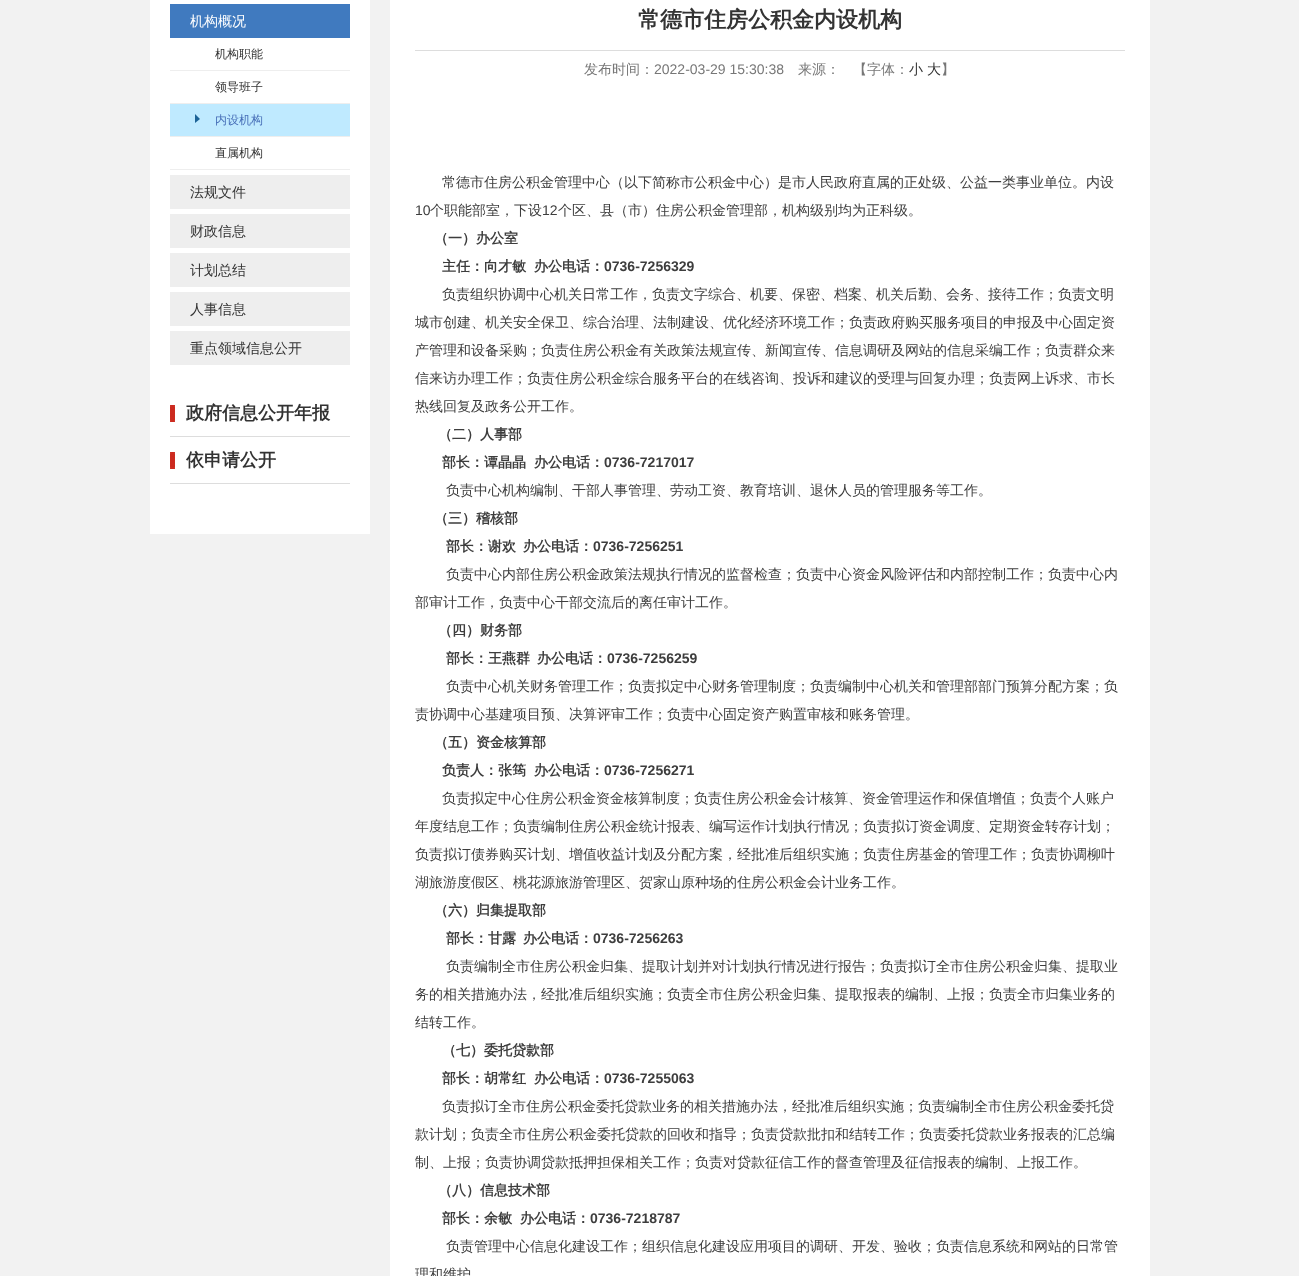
(async () => {
    const canvas = document.querySelector("canvas");
    canvas.width = 1299;
    canvas.height = 1276;
    const context = canvas.getContext("2d");
    context.miterLimit = 4;
    context.fontKerning = "normal";
    function write(s, x, y, font, color) {
        context.font = font;
        context.fillStyle = color;
        context.fillText(s, x, y);
    }
    function block(x, y, w, h, color) {
        context.fillStyle = color;
        context.fillRect(x, y, w, h);
    }
    async function photo(src, x, y, w, h) {
        const img = new Image();
        img.src = src;
        await img.decode();
        context.drawImage(img, x, y, w, h);
    }

    block(0, 0, 1299, 1276, "rgb(242, 242, 242)");
    block(150, 0, 220, 534, "rgb(255, 255, 255)");
    block(170, 4, 180, 34, "rgb(64, 122, 191)");
    write("机构概况", 190, 26, "500 14px WenQuanYi Zen Hei", "rgb(255, 255, 255)");
    block(170, 70, 180, 1, "rgb(238, 238, 238)");
    write("机构职能", 215, 58, "500 12px WenQuanYi Zen Hei", "rgb(51, 51, 51)");
    block(170, 103, 180, 1, "rgb(238, 238, 238)");
    write("领导班子", 215, 91, "500 12px WenQuanYi Zen Hei", "rgb(51, 51, 51)");
    block(170, 136, 180, 1, "rgb(238, 238, 238)");
    block(170, 104, 180, 32, "rgb(191, 234, 255)");
    await photo("media/1.png", 195, 114, 5, 9);
    write("内设机构", 215, 124, "500 12px WenQuanYi Zen Hei", "rgb(71, 111, 184)");
    block(170, 169, 180, 1, "rgb(238, 238, 238)");
    write("直属机构", 215, 157, "500 12px WenQuanYi Zen Hei", "rgb(51, 51, 51)");
    block(170, 175, 180, 34, "rgb(238, 238, 238)");
    write("法规文件", 190, 197, "500 14px WenQuanYi Zen Hei", "rgb(51, 51, 51)");
    block(170, 214, 180, 34, "rgb(238, 238, 238)");
    write("财政信息", 190, 236, "500 14px WenQuanYi Zen Hei", "rgb(51, 51, 51)");
    block(170, 253, 180, 34, "rgb(238, 238, 238)");
    write("计划总结", 190, 275, "500 14px WenQuanYi Zen Hei", "rgb(51, 51, 51)");
    block(170, 292, 180, 34, "rgb(238, 238, 238)");
    write("人事信息", 190, 314, "500 14px WenQuanYi Zen Hei", "rgb(51, 51, 51)");
    block(170, 331, 180, 34, "rgb(238, 238, 238)");
    write("重点领域信息公开", 190, 353, "500 14px WenQuanYi Zen Hei", "rgb(51, 51, 51)");
    await photo("media/2.png", 170, 405, 5, 17);
    block(170, 436, 180, 1, "rgb(221, 221, 221)");
    write("政府信息公开年报", 186, 419, "bold 18px WenQuanYi Zen Hei", "rgb(51, 51, 51)");
    await photo("media/2.png", 170, 452, 5, 17);
    block(170, 483, 180, 1, "rgb(221, 221, 221)");
    write("依申请公开", 186, 466, "bold 18px WenQuanYi Zen Hei", "rgb(51, 51, 51)");
    block(390, 0, 760, 1276, "rgb(255, 255, 255)");
    write("常德市住房公积金内设机构", 638, 27, "bold 22px WenQuanYi Zen Hei", "rgb(51, 51, 51)");
    block(415, 50, 710, 1, "rgb(221, 221, 221)");
    write("发布时间：", 584, 74, "500 14px WenQuanYi Zen Hei", "rgb(119, 119, 119)");
    write("2022-03-29 15:30:38", 654, 74, "14px Liberation Sans", "rgb(119, 119, 119)");
    write("来源：", 798, 74, "500 14px WenQuanYi Zen Hei", "rgb(119, 119, 119)");
    write("【字体：", 853, 74, "500 14px WenQuanYi Zen Hei", "rgb(119, 119, 119)");
    write("小", 909, 74, "500 14px WenQuanYi Zen Hei", "rgb(51, 51, 51)");
    write("大", 927, 74, "500 14px WenQuanYi Zen Hei", "rgb(51, 51, 51)");
    write("】", 941, 74, "500 14px WenQuanYi Zen Hei", "rgb(119, 119, 119)");
    write("常德市住房公积金管理中心（以下简称市公积金中心）是市人民政府直属的正处级、公益一类事业单位。内设", 442, 187, "500 14px WenQuanYi Zen Hei", "rgb(61, 61, 61)");
    write("10", 415, 215, "14px Liberation Sans", "rgb(61, 61, 61)");
    write("个职能部室，下设", 430, 215, "500 14px WenQuanYi Zen Hei", "rgb(61, 61, 61)");
    write("12", 542, 215, "14px Liberation Sans", "rgb(61, 61, 61)");
    write("个区、县（市）住房公积金管理部，机构级别均为正科级。", 558, 215, "500 14px WenQuanYi Zen Hei", "rgb(61, 61, 61)");
    write("（一）办公室", 434, 243, "bold 14px WenQuanYi Zen Hei", "rgb(61, 61, 61)");
    write("主任：向才敏", 442, 271, "bold 14px WenQuanYi Zen Hei", "rgb(61, 61, 61)");
    write("办公电话：", 534, 271, "bold 14px WenQuanYi Zen Hei", "rgb(61, 61, 61)");
    write("0736-7256329", 604, 271, "bold 14px Liberation Sans", "rgb(61, 61, 61)");
    write("负责组织协调中心机关日常工作，负责文字综合、机要、保密、档案、机关后勤、会务、接待工作；负责文明", 442, 299, "500 14px WenQuanYi Zen Hei", "rgb(61, 61, 61)");
    context.save();
    context.beginPath();
    context.rect(415, 97, 710, 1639);
    context.clip();
    write("城市创建、机关安全保卫、综合治理、法制建设、优化经济环境工作；负责政府购买服务项目的申报及中心固定资", 415, 327, "500 14px WenQuanYi Zen Hei", "rgb(61, 61, 61)");
    context.restore();
    write("产管理和设备采购；负责住房公积金有关政策法规宣传、新闻宣传、信息调研及网站的信息采编工作；负责群众来", 415, 355, "500 14px WenQuanYi Zen Hei", "rgb(61, 61, 61)");
    write("信来访办理工作；负责住房公积金综合服务平台的在线咨询、投诉和建议的受理与回复办理；负责网上诉求、市长", 415, 383, "500 14px WenQuanYi Zen Hei", "rgb(61, 61, 61)");
    write("热线回复及政务公开工作。", 415, 411, "500 14px WenQuanYi Zen Hei", "rgb(61, 61, 61)");
    write("（二）人事部", 438, 439, "bold 14px WenQuanYi Zen Hei", "rgb(61, 61, 61)");
    write("部长：谭晶晶", 442, 467, "bold 14px WenQuanYi Zen Hei", "rgb(61, 61, 61)");
    write("办公电话：", 534, 467, "bold 14px WenQuanYi Zen Hei", "rgb(61, 61, 61)");
    write("0736-7217017", 604, 467, "bold 14px Liberation Sans", "rgb(61, 61, 61)");
    write("负责中心机构编制、干部人事管理、劳动工资、教育培训、退休人员的管理服务等工作。", 446, 495, "500 14px WenQuanYi Zen Hei", "rgb(61, 61, 61)");
    write("（三）稽核部", 434, 523, "bold 14px WenQuanYi Zen Hei", "rgb(61, 61, 61)");
    write("部长：谢欢", 446, 551, "bold 14px WenQuanYi Zen Hei", "rgb(61, 61, 61)");
    write("办公电话：", 523, 551, "bold 14px WenQuanYi Zen Hei", "rgb(61, 61, 61)");
    write("0736-7256251", 593, 551, "bold 14px Liberation Sans", "rgb(61, 61, 61)");
    write("负责中心内部住房公积金政策法规执行情况的监督检查；负责中心资金风险评估和内部控制工作；负责中心内", 446, 579, "500 14px WenQuanYi Zen Hei", "rgb(61, 61, 61)");
    write("部审计工作，负责中心干部交流后的离任审计工作。", 415, 607, "500 14px WenQuanYi Zen Hei", "rgb(61, 61, 61)");
    write("（四）财务部", 438, 635, "bold 14px WenQuanYi Zen Hei", "rgb(61, 61, 61)");
    write("部长：王燕群", 446, 663, "bold 14px WenQuanYi Zen Hei", "rgb(61, 61, 61)");
    write("办公电话：", 537, 663, "bold 14px WenQuanYi Zen Hei", "rgb(61, 61, 61)");
    write("0736-7256259", 607, 663, "bold 14px Liberation Sans", "rgb(61, 61, 61)");
    write("负责中心机关财务管理工作；负责拟定中心财务管理制度；负责编制中心机关和管理部部门预算分配方案；负", 446, 691, "500 14px WenQuanYi Zen Hei", "rgb(61, 61, 61)");
    write("责协调中心基建项目预、决算评审工作；负责中心固定资产购置审核和账务管理。", 415, 719, "500 14px WenQuanYi Zen Hei", "rgb(61, 61, 61)");
    write("（五）资金核算部", 434, 747, "bold 14px WenQuanYi Zen Hei", "rgb(61, 61, 61)");
    write("负责人：张筠", 442, 775, "bold 14px WenQuanYi Zen Hei", "rgb(61, 61, 61)");
    write("办公电话：", 534, 775, "bold 14px WenQuanYi Zen Hei", "rgb(61, 61, 61)");
    write("0736-7256271", 604, 775, "bold 14px Liberation Sans", "rgb(61, 61, 61)");
    write("负责拟定中心住房公积金资金核算制度；负责住房公积金会计核算、资金管理运作和保值增值；负责个人账户", 442, 803, "500 14px WenQuanYi Zen Hei", "rgb(61, 61, 61)");
    write("年度结息工作；负责编制住房公积金统计报表、编写运作计划执行情况；负责拟订资金调度、定期资金转存计划；", 415, 831, "500 14px WenQuanYi Zen Hei", "rgb(61, 61, 61)");
    write("负责拟订债券购买计划、增值收益计划及分配方案，经批准后组织实施；负责住房基金的管理工作；负责协调柳叶", 415, 859, "500 14px WenQuanYi Zen Hei", "rgb(61, 61, 61)");
    write("湖旅游度假区、桃花源旅游管理区、贺家山原种场的住房公积金会计业务工作。", 415, 887, "500 14px WenQuanYi Zen Hei", "rgb(61, 61, 61)");
    write("（六）归集提取部", 434, 915, "bold 14px WenQuanYi Zen Hei", "rgb(61, 61, 61)");
    write("部长：甘露", 446, 943, "bold 14px WenQuanYi Zen Hei", "rgb(61, 61, 61)");
    write("办公电话：", 523, 943, "bold 14px WenQuanYi Zen Hei", "rgb(61, 61, 61)");
    write("0736-7256263", 593, 943, "bold 14px Liberation Sans", "rgb(61, 61, 61)");
    write("负责编制全市住房公积金归集、提取计划并对计划执行情况进行报告；负责拟订全市住房公积金归集、提取业", 446, 971, "500 14px WenQuanYi Zen Hei", "rgb(61, 61, 61)");
    write("务的相关措施办法，经批准后组织实施；负责全市住房公积金归集、提取报表的编制、上报；负责全市归集业务的", 415, 999, "500 14px WenQuanYi Zen Hei", "rgb(61, 61, 61)");
    write("结转工作。", 415, 1027, "500 14px WenQuanYi Zen Hei", "rgb(61, 61, 61)");
    write("（七）委托贷款部", 442, 1055, "bold 14px WenQuanYi Zen Hei", "rgb(61, 61, 61)");
    write("部长：胡常红", 442, 1083, "bold 14px WenQuanYi Zen Hei", "rgb(61, 61, 61)");
    write("办公电话：", 534, 1083, "bold 14px WenQuanYi Zen Hei", "rgb(61, 61, 61)");
    write("0736-7255063", 604, 1083, "bold 14px Liberation Sans", "rgb(61, 61, 61)");
    write("负责拟订全市住房公积金委托贷款业务的相关措施办法，经批准后组织实施；负责编制全市住房公积金委托贷", 442, 1111, "500 14px WenQuanYi Zen Hei", "rgb(61, 61, 61)");
    write("款计划；负责全市住房公积金委托贷款的回收和指导；负责贷款批扣和结转工作；负责委托贷款业务报表的汇总编", 415, 1139, "500 14px WenQuanYi Zen Hei", "rgb(61, 61, 61)");
    write("制、上报；负责协调贷款抵押担保相关工作；负责对贷款征信工作的督查管理及征信报表的编制、上报工作。", 415, 1167, "500 14px WenQuanYi Zen Hei", "rgb(61, 61, 61)");
    write("（八）信息技术部", 438, 1195, "bold 14px WenQuanYi Zen Hei", "rgb(61, 61, 61)");
    write("部长：余敏", 442, 1223, "bold 14px WenQuanYi Zen Hei", "rgb(61, 61, 61)");
    write("办公电话：", 520, 1223, "bold 14px WenQuanYi Zen Hei", "rgb(61, 61, 61)");
    write("0736-7218787", 590, 1223, "bold 14px Liberation Sans", "rgb(61, 61, 61)");
    write("负责管理中心信息化建设工作；组织信息化建设应用项目的调研、开发、验收；负责信息系统和网站的日常管", 446, 1251, "500 14px WenQuanYi Zen Hei", "rgb(61, 61, 61)");
    context.save();
    context.beginPath();
    context.rect(415, 97, 710, 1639);
    context.clip();
    write("理和维护", 415, 1279, "500 14px WenQuanYi Zen Hei", "rgb(61, 61, 61)");
    context.restore();
})();
